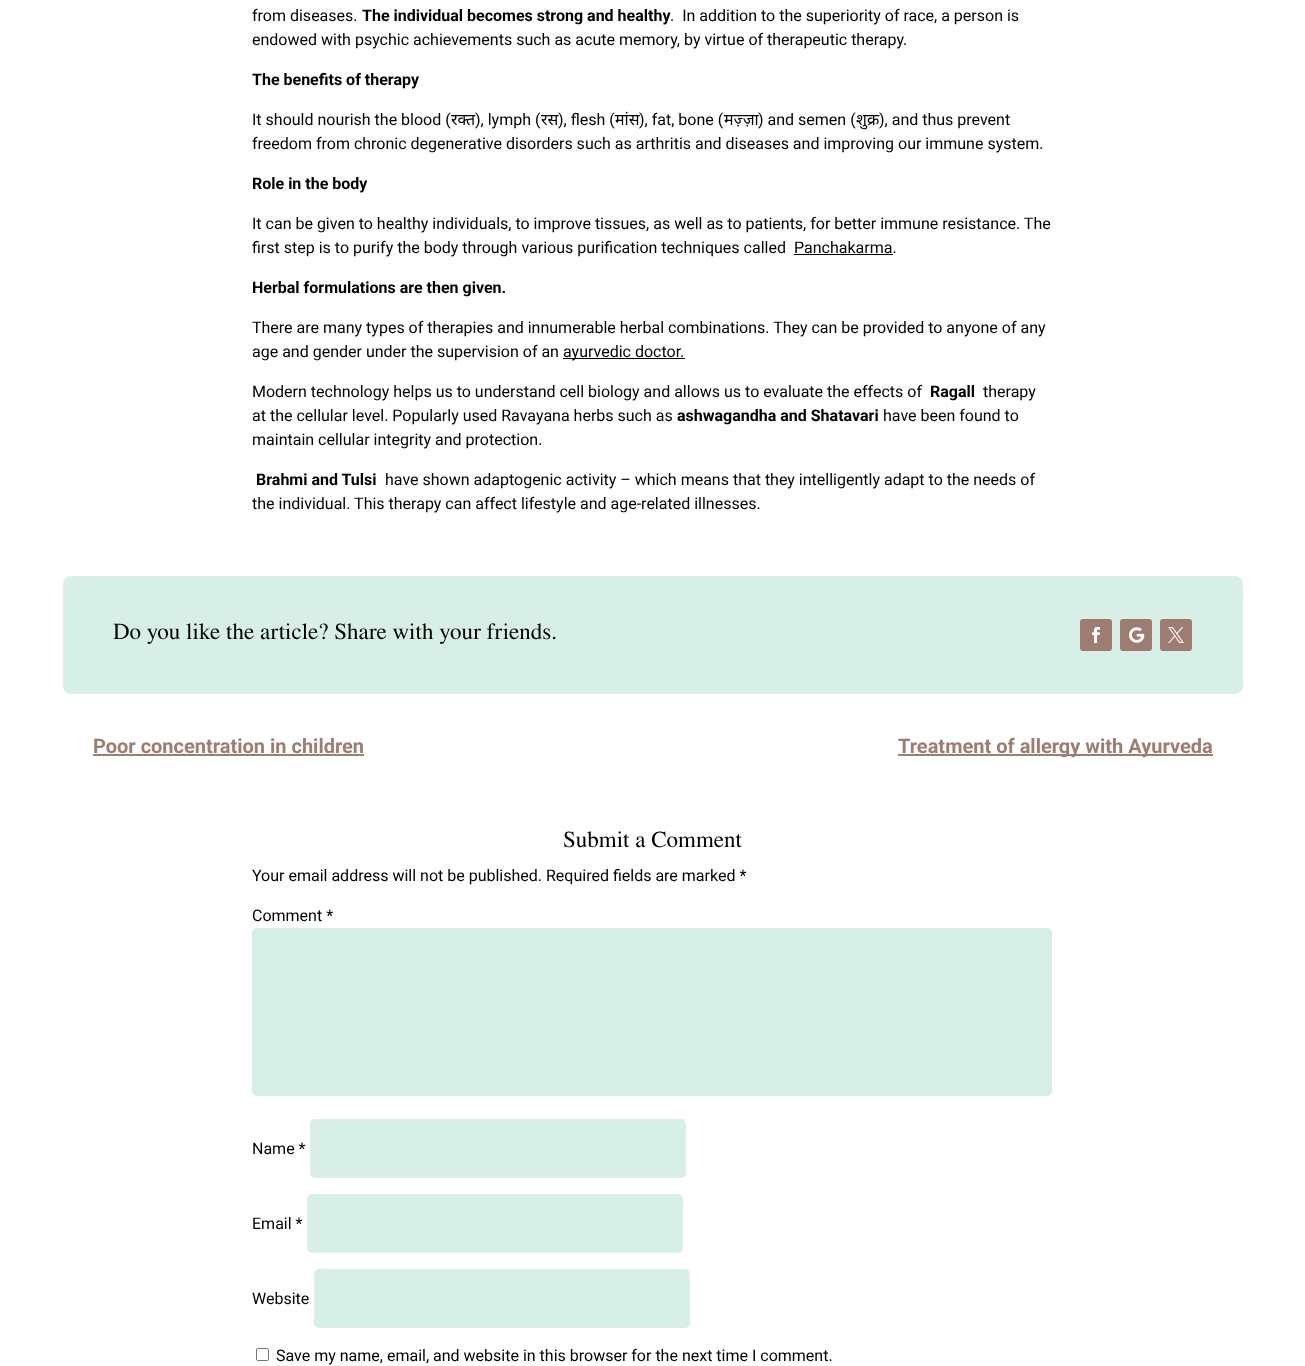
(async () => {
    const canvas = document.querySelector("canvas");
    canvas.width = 1305;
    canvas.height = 1366;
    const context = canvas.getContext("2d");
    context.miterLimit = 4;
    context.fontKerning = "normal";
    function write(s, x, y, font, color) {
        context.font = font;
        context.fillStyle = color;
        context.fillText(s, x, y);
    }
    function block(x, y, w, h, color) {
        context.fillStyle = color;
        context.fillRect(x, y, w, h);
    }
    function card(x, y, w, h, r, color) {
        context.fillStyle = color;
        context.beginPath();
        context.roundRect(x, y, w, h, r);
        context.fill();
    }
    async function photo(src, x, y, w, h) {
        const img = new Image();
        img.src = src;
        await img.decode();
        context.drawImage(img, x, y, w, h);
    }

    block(0, 0, 1305, 1366, "rgb(255, 255, 255)");
    write("from diseases.", 252, 21, "16px Roboto", "rgb(0, 0, 0)");
    write("The individual becomes strong and healthy", 362, 21, "bold 16px Roboto", "rgb(0, 0, 0)");
    write(".  In addition to the superiority of race, a person is", 670, 21, "16px Roboto", "rgb(0, 0, 0)");
    write("endowed with psychic achievements such as acute memory, by virtue of therapeutic therapy.", 252, 45, "16px Roboto", "rgb(0, 0, 0)");
    write("The benefits of therapy", 252, 85, "bold 16px Roboto", "rgb(0, 0, 0)");
    write("It should nourish the blood (", 252, 125, "16px Roboto", "rgb(0, 0, 0)");
    write("रक्त", 451, 125, "16px Noto Sans", "rgb(0, 0, 0)");
    write("), lymph (", 475, 125, "16px Roboto", "rgb(0, 0, 0)");
    write("रस", 541, 125, "16px Noto Sans", "rgb(0, 0, 0)");
    write("), flesh (", 558, 125, "16px Roboto", "rgb(0, 0, 0)");
    write("मांस", 615, 125, "16px Noto Sans", "rgb(0, 0, 0)");
    write("), fat, bone (", 639, 125, "16px Roboto", "rgb(0, 0, 0)");
    write("मज़्ज़ा", 724, 125, "16px Noto Sans", "rgb(0, 0, 0)");
    write(") and semen (", 758, 125, "16px Roboto", "rgb(0, 0, 0)");
    write("शुक्र", 856, 125, "16px Noto Sans", "rgb(0, 0, 0)");
    write("), and thus prevent", 879, 125, "16px Roboto", "rgb(0, 0, 0)");
    write("freedom from chronic degenerative disorders such as arthritis and diseases and improving our immune system.", 252, 149, "16px Roboto", "rgb(0, 0, 0)");
    write("Role in the body", 252, 189, "bold 16px Roboto", "rgb(0, 0, 0)");
    write("It can be given to healthy individuals, to improve tissues, as well as to patients, for better immune resistance. The", 252, 229, "16px Roboto", "rgb(0, 0, 0)");
    write("first step is to purify the body through various purification techniques called", 252, 253, "16px Roboto", "rgb(0, 0, 0)");
    write("Panchakarma.", 794, 253, "16px Roboto", "rgb(0, 0, 0)");
    block(794, 254, 99, 1, "rgb(0, 0, 0)");
    write("Herbal formulations are then given.", 252, 293, "bold 16px Roboto", "rgb(0, 0, 0)");
    write("There are many types of therapies and innumerable herbal combinations. They can be provided to anyone of any", 252, 333, "16px Roboto", "rgb(0, 0, 0)");
    write("age and gender under the supervision of an", 252, 357, "16px Roboto", "rgb(0, 0, 0)");
    block(563, 358, 122, 1, "rgb(0, 0, 0)");
    write("ayurvedic doctor.", 563, 357, "16px Roboto", "rgb(0, 0, 0)");
    write("Modern technology helps us to understand cell biology and allows us to evaluate the effects of", 252, 397, "16px Roboto", "rgb(0, 0, 0)");
    write("Ragall", 930, 397, "bold 16px Roboto", "rgb(0, 0, 0)");
    write("therapy", 983, 397, "16px Roboto", "rgb(0, 0, 0)");
    write("at the cellular level. Popularly used Ravayana herbs such as", 252, 421, "16px Roboto", "rgb(0, 0, 0)");
    write("ashwagandha and Shatavari", 677, 421, "bold 16px Roboto", "rgb(0, 0, 0)");
    write("have been found to", 883, 421, "16px Roboto", "rgb(0, 0, 0)");
    write("maintain cellular integrity and protection.", 252, 445, "16px Roboto", "rgb(0, 0, 0)");
    write("Brahmi and Tulsi", 256, 485, "bold 16px Roboto", "rgb(0, 0, 0)");
    write("have shown adaptogenic activity – which means that they intelligently adapt to the needs of", 385, 485, "16px Roboto", "rgb(0, 0, 0)");
    write("the individual. This therapy can affect lifestyle and age-related illnesses.", 252, 509, "16px Roboto", "rgb(0, 0, 0)");
    card(63, 576, 1180, 118, 8, "rgb(216, 239, 231)");
    write("Do you like the article? Share with your friends.", 113, 639, "23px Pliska", "rgb(0, 0, 0)");
    card(1080, 619, 32, 32, 3, "rgb(157, 125, 114)");
    await photo("media/1.png", 1092, 627, 8, 16);
    card(1120, 619, 32, 32, 3, "rgb(157, 125, 114)");
    await photo("media/2.png", 1129, 627, 16, 16);
    card(1160, 619, 32, 32, 3, "rgb(157, 125, 114)");
    await photo("media/3.png", 1168, 627, 16, 16);
    write("Poor concentration in children", 93, 753, "bold 20px Roboto", "rgb(157, 125, 114)");
    block(93, 754, 271, 2, "rgb(157, 125, 114)");
    block(898, 754, 315, 2, "rgb(157, 125, 114)");
    write("Treatment of allergy with Ayurveda", 898, 753, "bold 20px Roboto", "rgb(157, 125, 114)");
    write("Submit a Comment", 563, 847, "23px Pliska", "rgb(0, 0, 0)");
    write("Your email address will not be published. Required fields are marked *", 252, 881, "16px Roboto", "rgb(0, 0, 0)");
    write("Comment *", 252, 921, "16px Roboto", "rgb(0, 0, 0)");
    card(252, 928, 800, 168, 5, "rgb(216, 239, 231)");
    write("Name *", 252, 1154, "16px Roboto", "rgb(0, 0, 0)");
    card(310, 1119, 376, 59, 5, "rgb(216, 239, 231)");
    write("Email *", 252, 1229, "16px Roboto", "rgb(0, 0, 0)");
    card(307, 1194, 376, 59, 5, "rgb(216, 239, 231)");
    write("Website", 252, 1304, "16px Roboto", "rgb(0, 0, 0)");
    card(314, 1269, 376, 59, 5, "rgb(216, 239, 231)");
    context.beginPath();
    context.roundRect(256.5, 1348.5, 12, 12, 1.5);
    context.strokeStyle = "rgb(118, 118, 118)";
    context.stroke();
    write("Save my name, email, and website in this browser for the next time I comment.", 276, 1361, "16px Roboto", "rgb(0, 0, 0)");
})();
